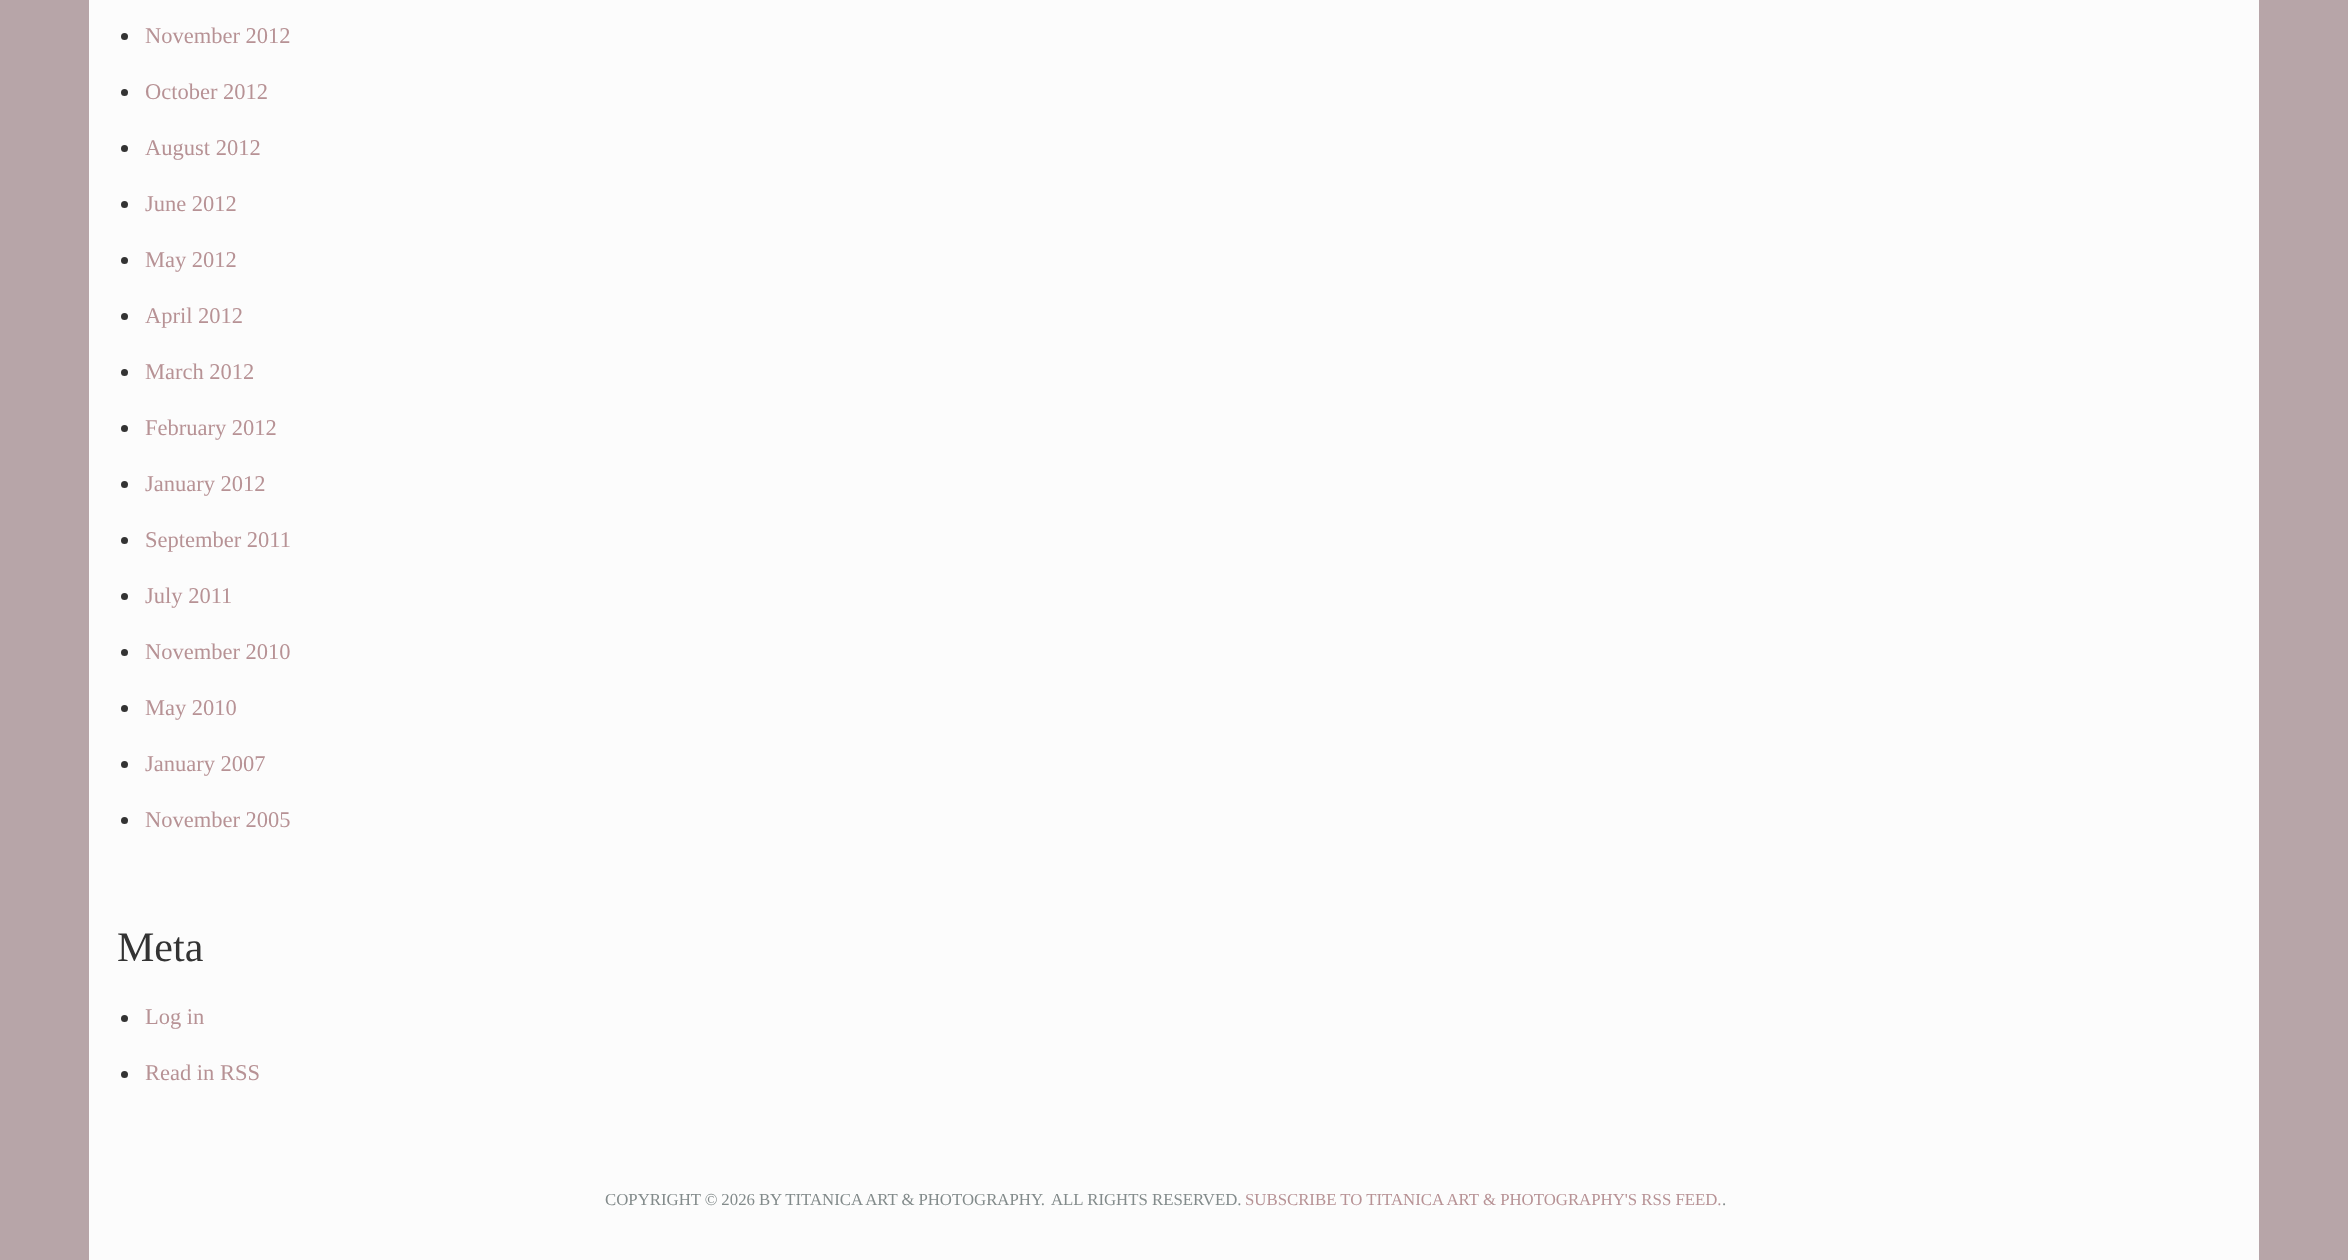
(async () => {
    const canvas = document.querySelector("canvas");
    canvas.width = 2348;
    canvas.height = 1260;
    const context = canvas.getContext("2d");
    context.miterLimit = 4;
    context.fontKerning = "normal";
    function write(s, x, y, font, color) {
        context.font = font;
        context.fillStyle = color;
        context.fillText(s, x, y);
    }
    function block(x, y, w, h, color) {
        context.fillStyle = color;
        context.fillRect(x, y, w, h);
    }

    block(0, 0, 2348, 1260, "rgb(183, 165, 168)");
    block(89, 0, 2170, 1260, "rgb(252, 252, 252)");
    context.fillStyle = "rgb(51, 51, 51)";
    context.beginPath();
    context.arc(124.5, 36.5, 3.5, 0, Math.PI * 2);
    context.fill();
    write("November 2012", 145, 43, "22.5px Liberation Serif", "rgb(183, 146, 149)");
    context.fillStyle = "rgb(51, 51, 51)";
    context.beginPath();
    context.arc(124.5, 92.5, 3.5, 0, Math.PI * 2);
    context.fill();
    write("October 2012", 145, 99, "22.5px Liberation Serif", "rgb(183, 146, 149)");
    context.fillStyle = "rgb(51, 51, 51)";
    context.beginPath();
    context.arc(124.5, 148.5, 3.5, 0, Math.PI * 2);
    context.fill();
    write("August 2012", 145, 155, "22.5px Liberation Serif", "rgb(183, 146, 149)");
    context.fillStyle = "rgb(51, 51, 51)";
    context.beginPath();
    context.arc(124.5, 204.5, 3.5, 0, Math.PI * 2);
    context.fill();
    write("June 2012", 145, 211, "22.5px Liberation Serif", "rgb(183, 146, 149)");
    context.fillStyle = "rgb(51, 51, 51)";
    context.beginPath();
    context.arc(124.5, 260.5, 3.5, 0, Math.PI * 2);
    context.fill();
    write("May 2012", 145, 267, "22.5px Liberation Serif", "rgb(183, 146, 149)");
    context.fillStyle = "rgb(51, 51, 51)";
    context.beginPath();
    context.arc(124.5, 316.5, 3.5, 0, Math.PI * 2);
    context.fill();
    write("April 2012", 145, 323, "22.5px Liberation Serif", "rgb(183, 146, 149)");
    context.fillStyle = "rgb(51, 51, 51)";
    context.beginPath();
    context.arc(124.5, 372.5, 3.5, 0, Math.PI * 2);
    context.fill();
    write("March 2012", 145, 379, "22.5px Liberation Serif", "rgb(183, 146, 149)");
    context.fillStyle = "rgb(51, 51, 51)";
    context.beginPath();
    context.arc(124.5, 428.5, 3.5, 0, Math.PI * 2);
    context.fill();
    write("February 2012", 145, 435, "22.5px Liberation Serif", "rgb(183, 146, 149)");
    context.fillStyle = "rgb(51, 51, 51)";
    context.beginPath();
    context.arc(124.5, 484.5, 3.5, 0, Math.PI * 2);
    context.fill();
    write("January 2012", 145, 491, "22.5px Liberation Serif", "rgb(183, 146, 149)");
    context.fillStyle = "rgb(51, 51, 51)";
    context.beginPath();
    context.arc(124.5, 540.5, 3.5, 0, Math.PI * 2);
    context.fill();
    write("September 2011", 145, 547, "22.5px Liberation Serif", "rgb(183, 146, 149)");
    context.fillStyle = "rgb(51, 51, 51)";
    context.beginPath();
    context.arc(124.5, 596.5, 3.5, 0, Math.PI * 2);
    context.fill();
    write("July 2011", 145, 603, "22.5px Liberation Serif", "rgb(183, 146, 149)");
    context.fillStyle = "rgb(51, 51, 51)";
    context.beginPath();
    context.arc(124.5, 652.5, 3.5, 0, Math.PI * 2);
    context.fill();
    write("November 2010", 145, 659, "22.5px Liberation Serif", "rgb(183, 146, 149)");
    context.fillStyle = "rgb(51, 51, 51)";
    context.beginPath();
    context.arc(124.5, 708.5, 3.5, 0, Math.PI * 2);
    context.fill();
    write("May 2010", 145, 715, "22.5px Liberation Serif", "rgb(183, 146, 149)");
    context.fillStyle = "rgb(51, 51, 51)";
    context.beginPath();
    context.arc(124.5, 764.5, 3.5, 0, Math.PI * 2);
    context.fill();
    write("January 2007", 145, 771, "22.5px Liberation Serif", "rgb(183, 146, 149)");
    context.fillStyle = "rgb(51, 51, 51)";
    context.beginPath();
    context.arc(124.5, 820.5, 3.5, 0, Math.PI * 2);
    context.fill();
    write("November 2005", 145, 827, "22.5px Liberation Serif", "rgb(183, 146, 149)");
    write("Meta", 117, 961, "42px Liberation Serif", "rgb(51, 51, 51)");
    context.beginPath();
    context.arc(124.5, 1018.5, 3.5, 0, Math.PI * 2);
    context.fill();
    write("Log in", 145, 1024, "22.5px Liberation Serif", "rgb(183, 146, 149)");
    context.fillStyle = "rgb(51, 51, 51)";
    context.beginPath();
    context.arc(124.5, 1074.5, 3.5, 0, Math.PI * 2);
    context.fill();
    write("Read in RSS", 145, 1080, "22.5px Liberation Serif", "rgb(183, 146, 149)");
    context.wordSpacing = "-0.25px";
    write("COPYRIGHT © 2026 BY TITANICA ART & PHOTOGRAPHY.", 605, 1205, "16.8px Liberation Serif", "rgb(131, 139, 139)");
    context.wordSpacing = "0px";
    write("ALL RIGHTS RESERVED.", 1051, 1205, "16.8px Liberation Serif", "rgb(131, 139, 139)");
    write("SUBSCRIBE TO TITANICA ART & PHOTOGRAPHY'S RSS FEED.", 1245, 1205, "16.8px Liberation Serif", "rgb(183, 146, 149)");
    write(".", 1722, 1205, "16.8px Liberation Serif", "rgb(131, 139, 139)");
})();
